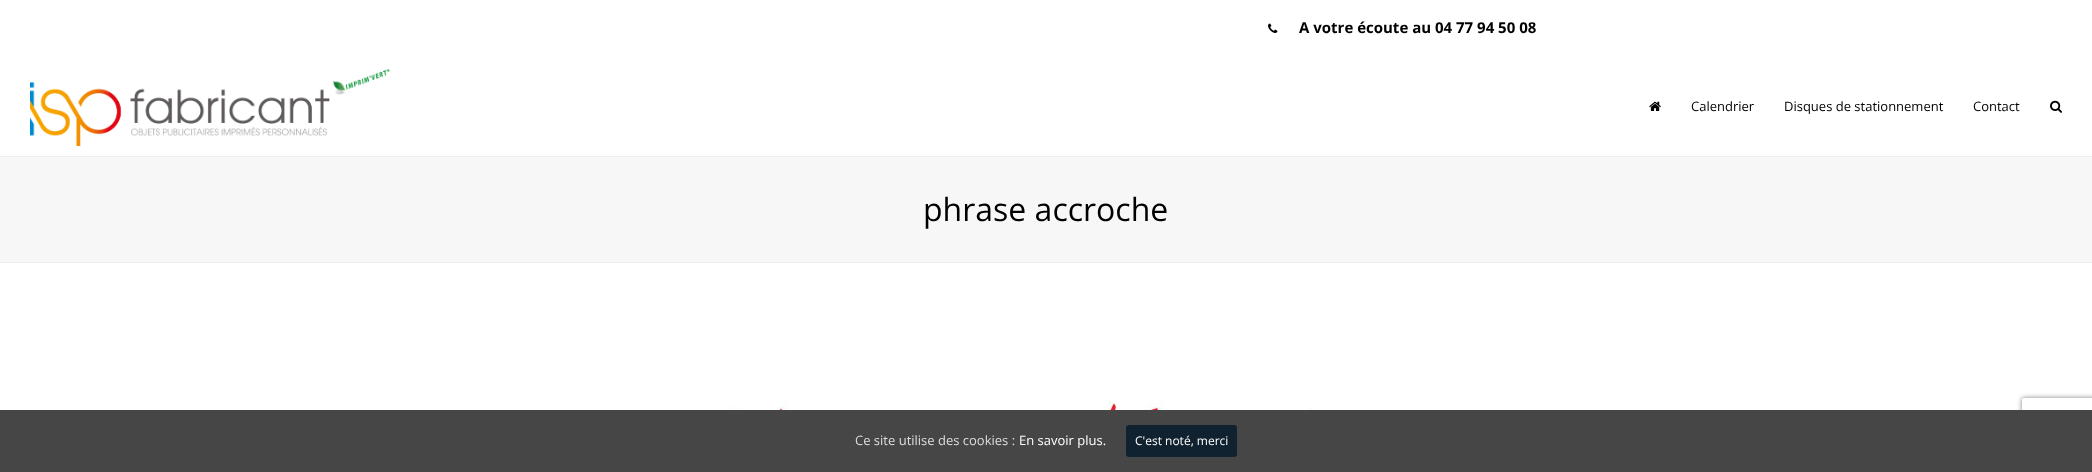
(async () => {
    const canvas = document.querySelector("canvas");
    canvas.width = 2092;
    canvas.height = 472;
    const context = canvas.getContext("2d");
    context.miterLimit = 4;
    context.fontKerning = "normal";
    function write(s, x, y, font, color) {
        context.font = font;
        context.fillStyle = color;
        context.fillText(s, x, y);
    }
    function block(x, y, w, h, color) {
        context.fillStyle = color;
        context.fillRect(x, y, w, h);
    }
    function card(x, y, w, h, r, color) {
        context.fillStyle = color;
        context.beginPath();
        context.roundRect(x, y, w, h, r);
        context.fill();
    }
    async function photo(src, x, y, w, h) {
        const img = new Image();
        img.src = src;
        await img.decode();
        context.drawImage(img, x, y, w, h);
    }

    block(0, 0, 2092, 472, "rgb(255, 255, 255)");
    await photo("media/1.png", 1268, 23, 10, 10);
    write("A votre écoute au 04 77 94 50 08", 1299, 33, "bold 15px Open Sans", "rgb(0, 0, 0)");
    await photo("media/2.png", 30, 69, 360, 77);
    await photo("media/3.png", 1649, 101, 12, 10);
    write("Calendrier", 1691, 111, "13px Open Sans", "rgb(0, 0, 0)");
    write("Disques de stationnement", 1784, 111, "13px Open Sans", "rgb(0, 0, 0)");
    write("Contact", 1973, 111, "13px Open Sans", "rgb(0, 0, 0)");
    await photo("media/4.png", 2050, 100, 12, 13);
    block(0, 157, 2092, 105, "rgb(247, 247, 247)");
    block(0, 156, 2092, 1, "rgb(238, 238, 238)");
    block(0, 262, 2092, 1, "rgb(238, 238, 238)");
    write("phrase accroche", 923, 221, "32px Open Sans", "rgb(0, 0, 0)");
    await photo("media/5.png", 572, 399, 824, 11);
    context.save();
    context.beginPath();
    context.moveTo(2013, 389);
    context.lineTo(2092, 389);
    context.lineTo(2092, 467);
    context.lineTo(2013, 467);
    context.closePath();
    context.moveTo(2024, 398);
    context.lineTo(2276, 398);
    context.bezierCurveTo(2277, 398, 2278, 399, 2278, 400);
    context.lineTo(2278, 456);
    context.bezierCurveTo(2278, 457, 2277, 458, 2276, 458);
    context.lineTo(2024, 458);
    context.bezierCurveTo(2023, 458, 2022, 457, 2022, 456);
    context.lineTo(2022, 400);
    context.bezierCurveTo(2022, 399, 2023, 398, 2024, 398);
    context.closePath();
    context.clip("evenodd");
    context.fillStyle = "rgb(128, 128, 128)";
    context.filter = "blur(2.5px)";
    context.beginPath();
    context.roundRect(2022, 398, 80, 60, 2);
    context.fill();
    context.filter = "none";
    context.restore();
    block(0, 410, 2092, 62, "rgb(70, 70, 70)");
    write("Ce site utilise des cookies :", 855, 445, "13px Open Sans", "rgb(221, 221, 221)");
    write("En savoir plus.", 1019, 445, "13px Open Sans", "rgb(255, 255, 255)");
    card(1126, 425, 111, 32, 3, "rgb(16, 33, 48)");
    write("C'est noté, merci", 1135, 445, "12px Open Sans", "rgb(255, 255, 255)");
})();
